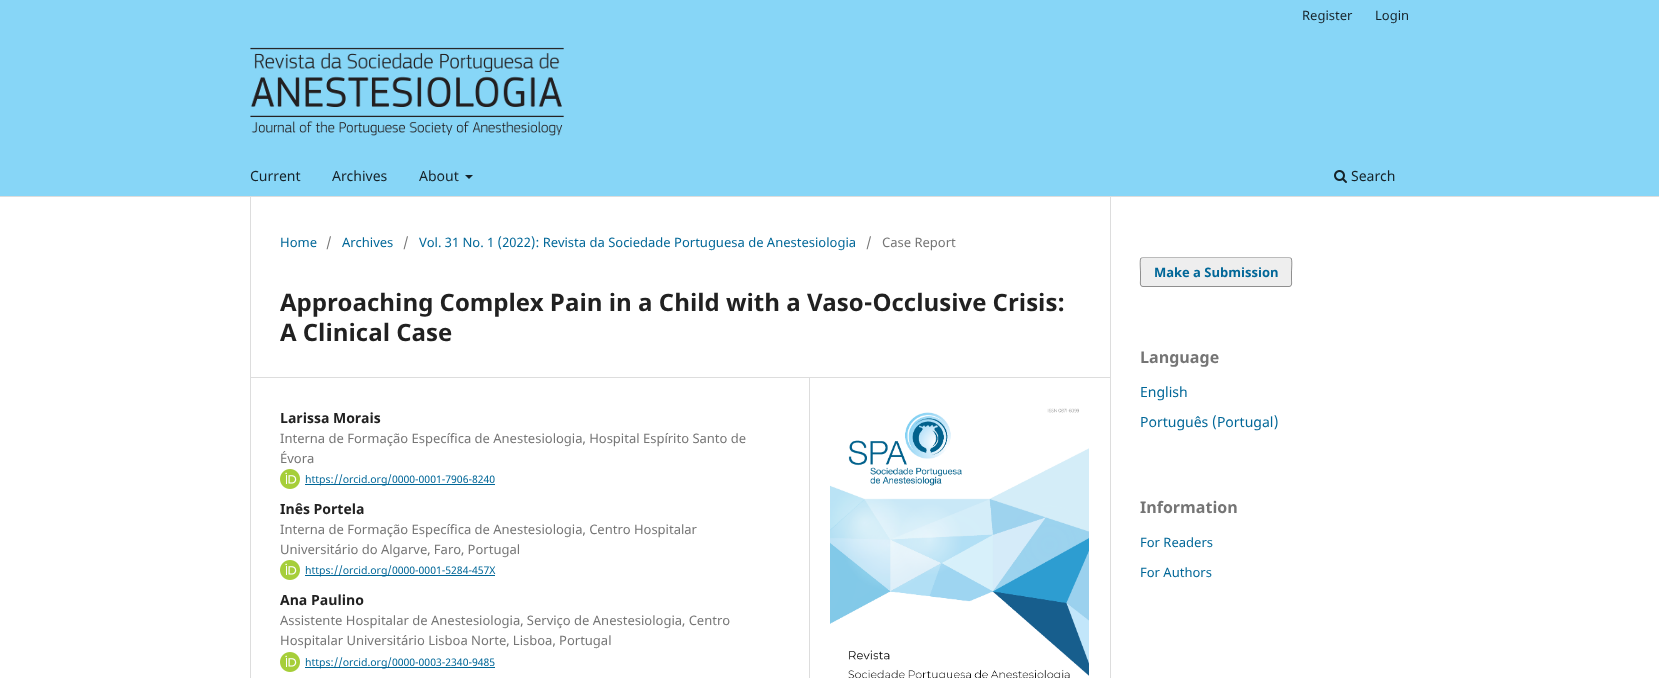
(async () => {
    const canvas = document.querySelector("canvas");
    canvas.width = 1659;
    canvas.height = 678;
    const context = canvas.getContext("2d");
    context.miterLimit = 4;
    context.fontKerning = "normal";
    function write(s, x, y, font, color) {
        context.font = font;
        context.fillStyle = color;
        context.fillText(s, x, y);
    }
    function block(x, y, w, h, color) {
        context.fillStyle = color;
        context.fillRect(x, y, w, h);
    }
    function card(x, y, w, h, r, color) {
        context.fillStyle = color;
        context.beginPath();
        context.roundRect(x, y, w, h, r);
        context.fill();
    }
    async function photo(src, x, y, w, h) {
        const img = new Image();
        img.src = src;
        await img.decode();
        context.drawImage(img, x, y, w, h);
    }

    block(0, 0, 1659, 678, "rgb(255, 255, 255)");
    block(0, 0, 1659, 196, "rgb(135, 214, 247)");
    block(0, 196, 1659, 1, "rgb(221, 221, 221)");
    write("Register", 1302, 20, "13px Noto Sans", "rgb(22, 34, 40)");
    write("Login", 1375, 20, "13px Noto Sans", "rgb(22, 34, 40)");
    write("Current", 250, 181, "14px Noto Sans", "rgb(22, 34, 40)");
    write("Archives", 332, 181, "14px Noto Sans", "rgb(22, 34, 40)");
    write("About", 419, 181, "14px Noto Sans", "rgb(22, 34, 40)");
    context.beginPath();
    context.moveTo(465, 175);
    context.lineTo(473, 175);
    context.lineTo(469, 179);
    context.closePath();
    context.fill();
    await photo("media/1.png", 1334, 170, 13, 13);
    write("Search", 1351, 181, "14px Noto Sans", "rgb(22, 34, 40)");
    await photo("media/2.png", 250, 47, 314, 89);
    block(250, 377, 860, 1, "rgb(221, 221, 221)");
    block(250, 197, 1, 481, "rgb(221, 221, 221)");
    write("Home", 280, 247, "13px Noto Sans", "rgb(0, 103, 152)");
    write("/", 326, 247, "13px Noto Sans", "rgb(117, 117, 117)");
    write("Archives", 342, 247, "13px Noto Sans", "rgb(0, 103, 152)");
    write("/", 403, 247, "13px Noto Sans", "rgb(117, 117, 117)");
    write("Vol. 31 No. 1 (2022): Revista da Sociedade Portuguesa de Anestesiologia", 419, 247, "13px Noto Sans", "rgb(0, 103, 152)");
    write("/", 866, 247, "13px Noto Sans", "rgb(117, 117, 117)");
    write("Case Report", 882, 247, "13px Noto Sans", "rgb(117, 117, 117)");
    write("Approaching Complex Pain in a Child with a Vaso-Occlusive Crisis:", 280, 311, "bold 24px Noto Sans", "rgb(33, 33, 33)");
    write("A Clinical Case", 280, 341, "bold 24px Noto Sans", "rgb(33, 33, 33)");
    block(809, 378, 1, 300, "rgb(221, 221, 221)");
    write("Larissa Morais", 280, 423, "bold 14px Noto Sans", "rgb(33, 33, 33)");
    write("Interna de Formação Específica de Anestesiologia, Hospital Espírito Santo de", 280, 443, "13px Noto Sans", "rgb(117, 117, 117)");
    write("Évora", 280, 463, "13px Noto Sans", "rgb(117, 117, 117)");
    await photo("media/3.png", 280, 469, 20, 20);
    block(305, 484, 190, 1, "rgb(0, 103, 152)");
    write("https://orcid.org/0000-0001-7906-8240", 305, 483, "10.5px Noto Sans", "rgb(0, 103, 152)");
    write("Inês Portela", 280, 514, "bold 14px Noto Sans", "rgb(33, 33, 33)");
    write("Interna de Formação Específica de Anestesiologia, Centro Hospitalar", 280, 534, "13px Noto Sans", "rgb(117, 117, 117)");
    write("Universitário do Algarve, Faro, Portugal", 280, 554, "13px Noto Sans", "rgb(117, 117, 117)");
    await photo("media/3.png", 280, 560, 20, 20);
    block(305, 575, 190, 1, "rgb(0, 103, 152)");
    write("https://orcid.org/0000-0001-5284-457X", 305, 574, "10.5px Noto Sans", "rgb(0, 103, 152)");
    write("Ana Paulino", 280, 605, "bold 14px Noto Sans", "rgb(33, 33, 33)");
    write("Assistente Hospitalar de Anestesiologia, Serviço de Anestesiologia, Centro", 280, 625, "13px Noto Sans", "rgb(117, 117, 117)");
    write("Hospitalar Universitário Lisboa Norte, Lisboa, Portugal", 280, 645, "13px Noto Sans", "rgb(117, 117, 117)");
    await photo("media/3.png", 280, 652, 20, 20);
    block(305, 667, 190, 1, "rgb(0, 103, 152)");
    write("https://orcid.org/0000-0003-2340-9485", 305, 666, "10.5px Noto Sans", "rgb(0, 103, 152)");
    await photo("media/4.png", 830, 408, 259, 270);
    block(1110, 197, 1, 481, "rgb(221, 221, 221)");
    card(1140, 257, 152, 30, 3, "rgb(238, 238, 238)");
    context.beginPath();
    context.moveTo(1141, 258);
    context.lineTo(1143, 257.5);
    context.lineTo(1289, 257.5);
    context.lineTo(1291, 258);
    context.strokeStyle = "rgb(187, 187, 187)";
    context.stroke();
    context.beginPath();
    context.moveTo(1291, 258);
    context.bezierCurveTo(1292.5, 260, 1291.5, 269.5, 1291.5, 272);
    context.lineTo(1291.5, 280);
    context.bezierCurveTo(1291.5, 282, 1292.5, 286.5, 1289, 286.5);
    context.lineTo(1143, 286.5);
    context.bezierCurveTo(1139.5, 286.5, 1140.5, 282, 1140.5, 280);
    context.lineTo(1140.5, 272);
    context.bezierCurveTo(1140.5, 269.5, 1139.5, 260, 1141, 258);
    context.strokeStyle = "rgba(0, 0, 0, 0.4)";
    context.stroke();
    write("Make a Submission", 1154, 277, "bold 13px Noto Sans", "rgb(0, 103, 152)");
    write("Language", 1140, 363, "bold 16px Noto Sans", "rgb(117, 117, 117)");
    write("English", 1140, 397, "14px Noto Sans", "rgb(0, 103, 152)");
    write("Português (Portugal)", 1140, 427, "14px Noto Sans", "rgb(0, 103, 152)");
    write("Information", 1140, 513, "bold 16px Noto Sans", "rgb(117, 117, 117)");
    write("For Readers", 1140, 547, "13px Noto Sans", "rgb(0, 103, 152)");
    write("For Authors", 1140, 577, "13px Noto Sans", "rgb(0, 103, 152)");
})();
